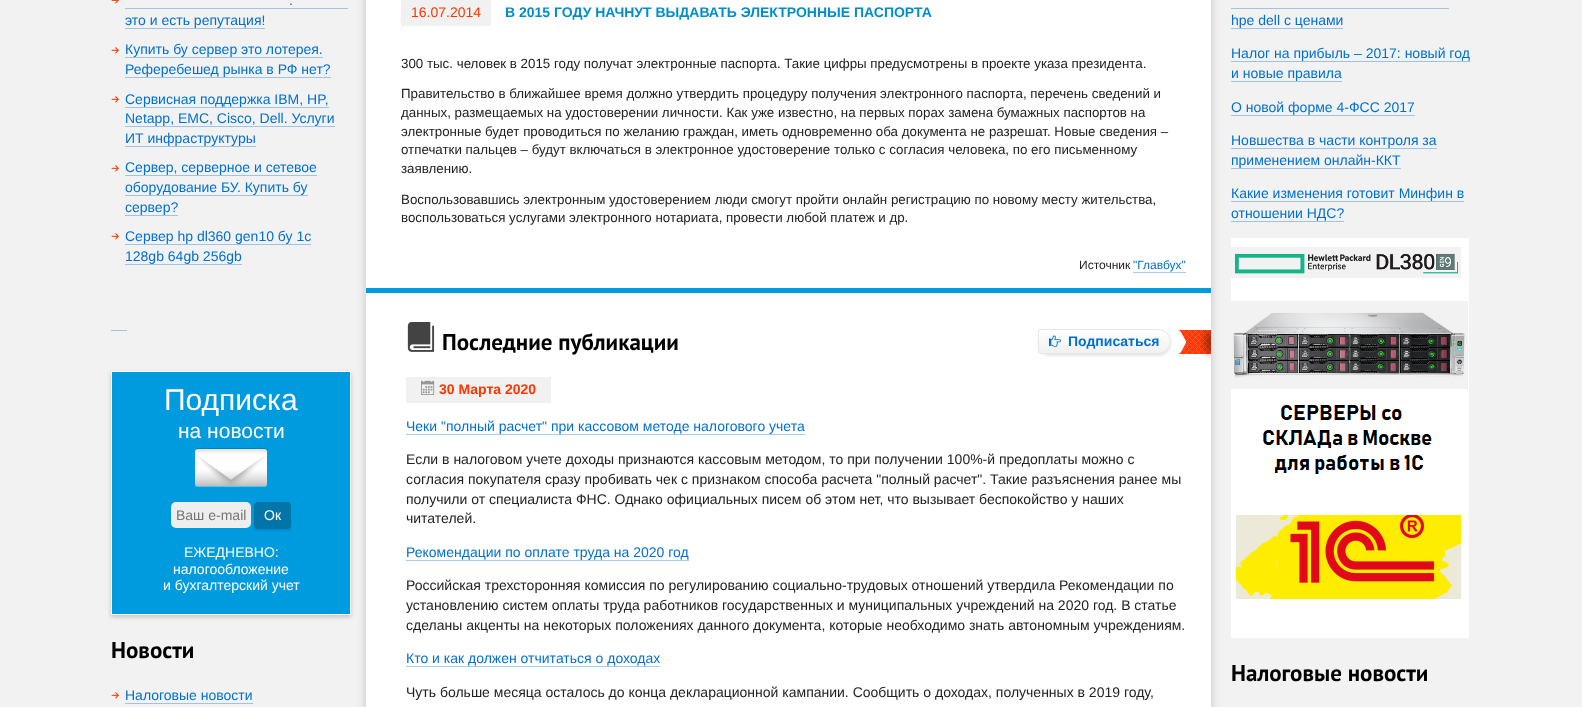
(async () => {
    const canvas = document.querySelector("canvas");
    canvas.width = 1582;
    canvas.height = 707;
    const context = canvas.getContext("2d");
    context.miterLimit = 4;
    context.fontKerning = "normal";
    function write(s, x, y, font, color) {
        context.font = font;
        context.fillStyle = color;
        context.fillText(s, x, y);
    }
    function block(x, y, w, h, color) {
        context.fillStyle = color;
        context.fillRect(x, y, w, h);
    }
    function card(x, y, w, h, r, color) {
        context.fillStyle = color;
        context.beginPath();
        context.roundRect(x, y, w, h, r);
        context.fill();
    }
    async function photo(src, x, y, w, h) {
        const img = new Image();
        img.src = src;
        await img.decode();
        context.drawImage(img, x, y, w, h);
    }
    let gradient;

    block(0, 0, 1582, 707, "rgb(242, 242, 242)");
    await photo("media/1.png", 111, 0, 8, 4);
    write(".", 289, 5, "14px Liberation Sans", "rgb(0, 112, 208)");
    block(125, 8, 223, 1, "rgb(157, 196, 230)");
    write("это и есть репутация!", 125, 25, "14px Liberation Sans", "rgb(0, 112, 208)");
    block(125, 28, 140, 1, "rgb(157, 196, 230)");
    await photo("media/2.png", 111, 47, 8, 7);
    write("Купить бу сервер это лотерея.", 125, 54, "14px Liberation Sans", "rgb(0, 112, 208)");
    block(125, 57, 198, 1, "rgb(157, 196, 230)");
    write("Реферебешед рынка в РФ нет?", 125, 74, "14px Liberation Sans", "rgb(0, 112, 208)");
    block(125, 77, 206, 1, "rgb(157, 196, 230)");
    await photo("media/2.png", 111, 96, 8, 7);
    write("Сервисная поддержка IBM, HP,", 125, 104, "14px Liberation Sans", "rgb(0, 112, 208)");
    block(125, 107, 204, 1, "rgb(157, 196, 230)");
    write("Netapp, EMC, Cisco, Dell. Услуги", 125, 123, "14px Liberation Sans", "rgb(0, 112, 208)");
    block(125, 126, 210, 1, "rgb(157, 196, 230)");
    write("ИТ инфраструктуры", 125, 143, "14px Liberation Sans", "rgb(0, 112, 208)");
    block(125, 146, 131, 1, "rgb(157, 196, 230)");
    await photo("media/2.png", 111, 165, 8, 7);
    write("Сервер, серверное и сетевое", 125, 172, "14px Liberation Sans", "rgb(0, 112, 208)");
    block(125, 175, 192, 1, "rgb(157, 196, 230)");
    write("оборудование БУ. Купить бу", 125, 192, "14px Liberation Sans", "rgb(0, 112, 208)");
    block(125, 195, 183, 1, "rgb(157, 196, 230)");
    write("сервер?", 125, 212, "14px Liberation Sans", "rgb(0, 112, 208)");
    block(125, 215, 53, 1, "rgb(157, 196, 230)");
    await photo("media/2.png", 111, 233, 8, 7);
    write("Сервер hp dl360 gen10 бу 1c", 125, 241, "14px Liberation Sans", "rgb(0, 112, 208)");
    block(125, 244, 186, 1, "rgb(157, 196, 230)");
    write("128gb 64gb 256gb", 125, 261, "14px Liberation Sans", "rgb(0, 112, 208)");
    block(125, 264, 117, 1, "rgb(157, 196, 230)");
    block(111, 330, 16, 1, "rgb(157, 196, 230)");
    context.fillStyle = "rgba(0, 0, 0, 0.2)";
    context.filter = "blur(2px)";
    context.beginPath();
    context.rect(111, 373, 240, 244);
    context.fill();
    context.filter = "none";
    context.fillStyle = "rgb(0, 155, 222)";
    context.beginPath();
    context.rect(111.5, 371.5, 239, 243);
    context.fill();
    context.strokeStyle = "rgb(255, 255, 255)";
    context.stroke();
    write("Подписка", 164, 410, "30px Liberation Sans", "rgb(255, 255, 255)");
    write("на новости", 178, 438, "21px Liberation Sans", "rgb(255, 255, 255)");
    await photo("media/3.png", 195, 448, 72, 39);
    card(171, 502, 80, 26, 5, "rgb(238, 238, 238)");
    write("Ваш e-mail", 176, 520, "14px Liberation Sans", "rgb(117, 117, 117)");
    context.fillStyle = "rgba(0, 0, 0, 0.1)";
    context.filter = "blur(1px)";
    context.beginPath();
    context.roundRect(254, 504, 37, 27, 4);
    context.fill();
    context.filter = "none";
    card(254, 502, 37, 27, 4, "rgb(1, 117, 167)");
    write("Ок", 264, 520, "14px Liberation Sans", "rgb(255, 255, 255)");
    write("ЕЖЕДНЕВНО:", 184, 557, "14px Liberation Sans", "rgb(255, 255, 255)");
    write("налогообложение", 173, 574, "14px Liberation Sans", "rgb(255, 255, 255)");
    write("и бухгалтерский учет", 163, 590, "14px Liberation Sans", "rgb(255, 255, 255)");
    write("Новости", 111, 658, "bold 23px PT Sans", "rgb(0, 0, 0)");
    await photo("media/2.png", 111, 692, 8, 7);
    write("Налоговые новости", 125, 700, "14px Liberation Sans", "rgb(0, 112, 208)");
    block(125, 703, 128, 1, "rgb(157, 196, 230)");
    context.fillStyle = "rgba(0, 0, 0, 0.2)";
    context.filter = "blur(5px)";
    context.beginPath();
    context.rect(366, -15, 845, 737);
    context.fill();
    context.filter = "none";
    block(366, 0, 845, 707, "rgb(255, 255, 255)");
    block(401, 0, 90, 26, "rgb(241, 241, 241)");
    write("16.07.2014", 411, 17, "14px Liberation Sans", "rgb(255, 53, 0)");
    write("В 2015 ГОДУ НАЧНУТ ВЫДАВАТЬ ЭЛЕКТРОННЫЕ ПАСПОРТА", 505, 17, "bold 14px Liberation Sans", "rgb(0, 142, 203)");
    write("300 тыс. человек в 2015 году получат электронные паспорта. Такие цифры предусмотрены в проекте указа президента.", 401, 68, "13.33px Liberation Sans", "rgb(34, 34, 34)");
    write("Правительство в ближайшее время должно утвердить процедуру получения электронного паспорта, перечень сведений и", 401, 98, "13.33px Liberation Sans", "rgb(34, 34, 34)");
    write("данных, размещаемых на удостоверении личности. Как уже известно, на первых порах замена бумажных паспортов на", 401, 117, "13.33px Liberation Sans", "rgb(34, 34, 34)");
    write("электронные будет проводиться по желанию граждан, иметь одновременно оба документа не разрешат. Новые сведения –", 401, 136, "13.33px Liberation Sans", "rgb(34, 34, 34)");
    write("отпечатки пальцев – будут включаться в электронное удостоверение только с согласия человека, по его письменному", 401, 154, "13.33px Liberation Sans", "rgb(34, 34, 34)");
    write("заявлению.", 401, 173, "13.33px Liberation Sans", "rgb(34, 34, 34)");
    write("Воспользовавшись электронным удостоверением люди смогут пройти онлайн регистрацию по новому месту жительства,", 401, 204, "13.33px Liberation Sans", "rgb(34, 34, 34)");
    write("воспользоваться услугами электронного нотариата, провести любой платеж и др.", 401, 222, "13.33px Liberation Sans", "rgb(34, 34, 34)");
    write("Источник", 1079, 269, "12px Liberation Sans", "rgb(34, 34, 34)");
    write("\"Главбух\"", 1133, 269, "12px Liberation Sans", "rgb(0, 112, 208)");
    block(1133, 272, 53, 1, "rgb(166, 205, 239)");
    block(366, 288, 845, 5, "rgb(2, 156, 222)");
    await photo("media/4.png", 1178, 330, 33, 30);
    await photo("media/5.png", 407, 322, 28, 30);
    write("Последние публикации", 442, 350, "bold 23px PT Sans", "rgb(0, 0, 0)");
    context.fillStyle = "rgba(0, 0, 0, 0.1)";
    context.filter = "blur(1px)";
    context.beginPath();
    context.roundRect(1038, 331, 133, 25, 12.5);
    context.fill();
    context.filter = "none";
    context.save();
    context.beginPath();
    context.roundRect(1038, 329, 133, 25, [3, 12.5, 12.5, 3]);
    context.clip();
    gradient = context.createLinearGradient(1105, 330, 1105, 353);
    gradient.addColorStop(0, "rgb(255, 255, 255)");
    gradient.addColorStop(1, "rgb(241, 241, 241)");
    context.fillStyle = gradient;
    context.fillRect(1038, 330, 133, 23);
    context.restore();
    context.beginPath();
    context.roundRect(1038.5, 329.5, 132, 24, [2.5, 12, 12, 2.5]);
    context.strokeStyle = "rgb(231, 231, 231)";
    context.stroke();
    await photo("media/6.png", 1049, 335, 12, 12);
    write("Подписаться", 1068, 346, "bold 14px Liberation Sans", "rgb(0, 112, 208)");
    block(406, 377, 145, 26, "rgb(241, 241, 241)");
    await photo("media/7.png", 421, 380, 14, 15);
    write("30 Марта 2020", 439, 394, "bold 14px Liberation Sans", "rgb(255, 53, 0)");
    write("Чеки \"полный расчет\" при кассовом методе налогового учета", 406, 431, "14px Liberation Sans", "rgb(0, 112, 208)");
    block(406, 434, 399, 1, "rgb(166, 205, 239)");
    write("Если в налоговом учете доходы признаются кассовым методом, то при получении 100%-й предоплаты можно с", 406, 464, "14px Liberation Sans", "rgb(34, 34, 34)");
    write("согласия покупателя сразу пробивать чек с признаком способа расчета \"полный расчет\". Такие разъяснения ранее мы", 406, 484, "14px Liberation Sans", "rgb(34, 34, 34)");
    write("получили от специалиста ФНС. Однако официальных писем об этом нет, что вызывает беспокойство у наших", 406, 504, "14px Liberation Sans", "rgb(34, 34, 34)");
    write("читателей.", 406, 523, "14px Liberation Sans", "rgb(34, 34, 34)");
    write("Рекомендации по оплате труда на 2020 год", 406, 557, "14px Liberation Sans", "rgb(0, 112, 208)");
    block(406, 560, 283, 1, "rgb(166, 205, 239)");
    write("Российская трехсторонняя комиссия по регулированию социально-трудовых отношений утвердила Рекомендации по", 406, 590, "14px Liberation Sans", "rgb(34, 34, 34)");
    write("установлению систем оплаты труда работников государственных и муниципальных учреждений на 2020 год. В статье", 406, 610, "14px Liberation Sans", "rgb(34, 34, 34)");
    write("сделаны акценты на некоторых положениях данного документа, которые необходимо знать автономным учреждениям.", 406, 630, "14px Liberation Sans", "rgb(34, 34, 34)");
    write("Кто и как должен отчитаться о доходах", 406, 663, "14px Liberation Sans", "rgb(0, 112, 208)");
    block(406, 666, 254, 1, "rgb(166, 205, 239)");
    write("Чуть больше месяца осталось до конца декларационной кампании. Сообщить о доходах, полученных в 2019 году,", 406, 697, "14px Liberation Sans", "rgb(34, 34, 34)");
    write("hpe dell с ценами", 1231, 25, "14px Liberation Sans", "rgb(0, 112, 208)");
    block(1231, 8, 218, 1, "rgb(157, 196, 230)");
    block(1231, 28, 112, 1, "rgb(157, 196, 230)");
    write("Налог на прибыль – 2017: новый год", 1231, 58, "14px Liberation Sans", "rgb(0, 112, 208)");
    block(1231, 61, 239, 1, "rgb(157, 196, 230)");
    write("и новые правила", 1231, 78, "14px Liberation Sans", "rgb(0, 112, 208)");
    block(1231, 81, 111, 1, "rgb(157, 196, 230)");
    write("О новой форме 4-ФСС 2017", 1231, 112, "14px Liberation Sans", "rgb(0, 112, 208)");
    block(1231, 115, 184, 1, "rgb(157, 196, 230)");
    write("Новшества в части контроля за", 1231, 145, "14px Liberation Sans", "rgb(0, 112, 208)");
    block(1231, 148, 206, 1, "rgb(157, 196, 230)");
    write("применением онлайн-ККТ", 1231, 165, "14px Liberation Sans", "rgb(0, 112, 208)");
    block(1231, 168, 170, 1, "rgb(157, 196, 230)");
    write("Какие изменения готовит Минфин в", 1231, 198, "14px Liberation Sans", "rgb(0, 112, 208)");
    block(1231, 201, 233, 1, "rgb(157, 196, 230)");
    write("отношении НДС?", 1231, 218, "14px Liberation Sans", "rgb(0, 112, 208)");
    block(1231, 221, 113, 1, "rgb(157, 196, 230)");
    await photo("media/8.png", 1231, 238, 238, 400);
    write("Налоговые новости", 1231, 681, "bold 23px PT Sans", "rgb(0, 0, 0)");
})();
